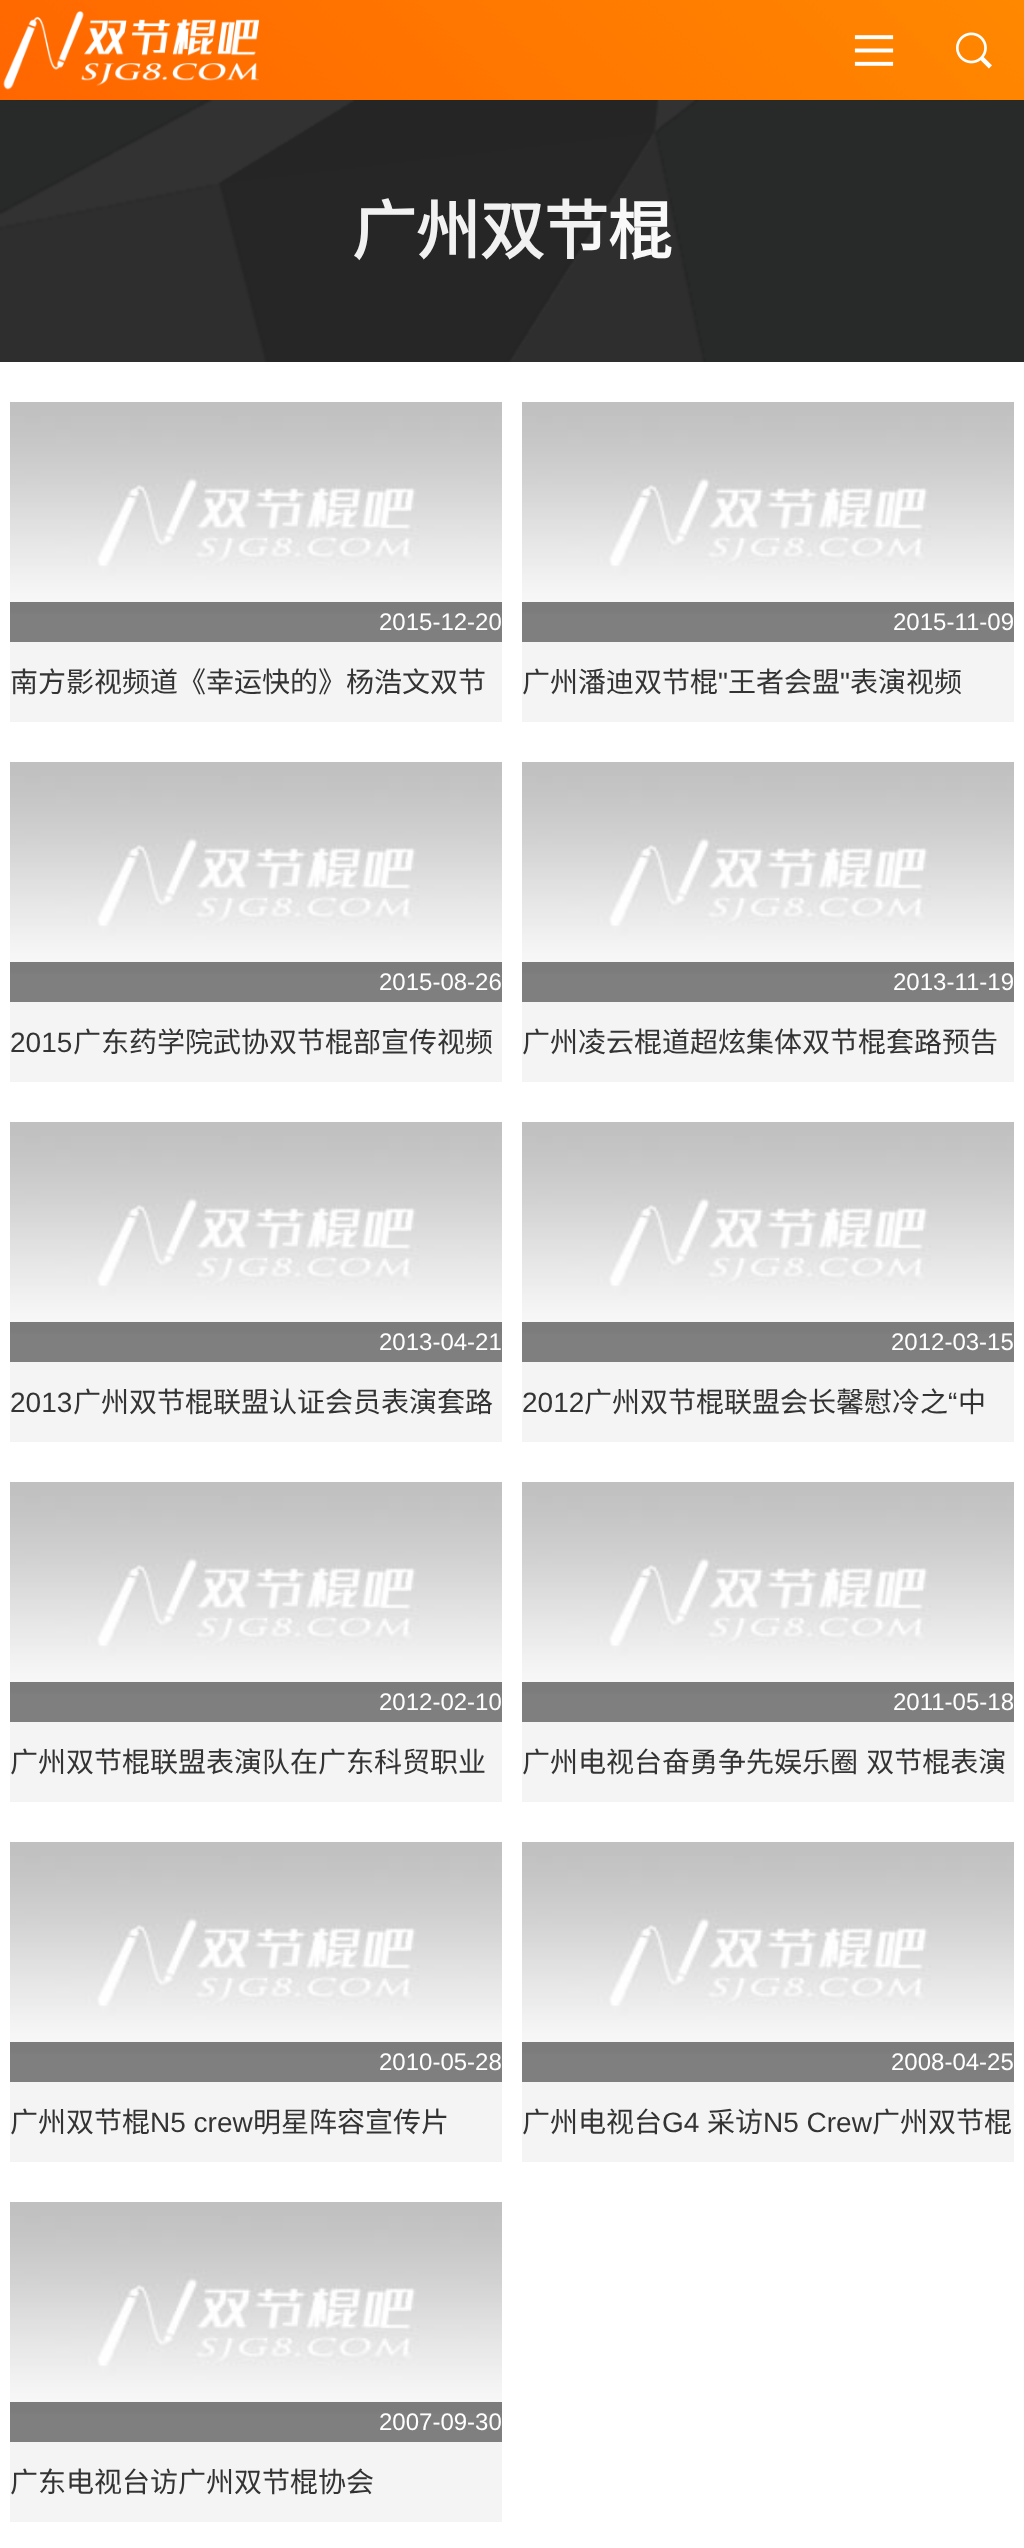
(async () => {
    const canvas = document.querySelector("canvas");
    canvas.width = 1024;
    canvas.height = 2548;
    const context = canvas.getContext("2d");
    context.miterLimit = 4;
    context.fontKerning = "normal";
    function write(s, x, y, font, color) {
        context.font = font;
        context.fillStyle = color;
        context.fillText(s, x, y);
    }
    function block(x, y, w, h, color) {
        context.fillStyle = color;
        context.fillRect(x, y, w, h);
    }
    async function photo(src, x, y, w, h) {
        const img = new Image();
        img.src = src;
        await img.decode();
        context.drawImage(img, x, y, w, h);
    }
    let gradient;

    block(0, 0, 1024, 2548, "rgb(255, 255, 255)");
    gradient = context.createLinearGradient(231, 331, 793, -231);
    gradient.addColorStop(0, "rgb(255, 102, 0)");
    gradient.addColorStop(1, "rgb(255, 136, 0)");
    context.fillStyle = gradient;
    context.fillRect(0, 0, 1024, 100);
    await photo("media/1.png", 3, 11, 257, 79);
    await photo("media/2.png", 854, 35, 40, 31);
    await photo("media/3.png", 956, 32, 36, 37);
    block(0, 100, 1024, 262, "rgb(34, 34, 34)");
    write("广州双节棍", 352, 254, "bold 64px Noto Sans CJK SC", "rgb(255, 255, 255)");
    await photo("media/4.png", 0, 100, 1024, 262);
    await photo("media/5.png", 10, 402, 492, 212);
    block(10, 602, 492, 40, "rgba(0, 0, 0, 0.5)");
    write("2015-12-20", 379, 630, "24px Liberation Sans", "rgb(255, 255, 255)");
    block(10, 642, 492, 80, "rgb(244, 244, 244)");
    write("南方影视频道《幸运快的》杨浩文双节", 10, 692, "28px Noto Sans CJK SC", "rgb(51, 51, 51)");
    await photo("media/5.png", 522, 402, 492, 212);
    block(522, 602, 492, 40, "rgba(0, 0, 0, 0.5)");
    write("2015-11-09", 893, 630, "24px Liberation Sans", "rgb(255, 255, 255)");
    block(522, 642, 492, 80, "rgb(244, 244, 244)");
    write("广州潘迪双节棍", 522, 692, "28px Noto Sans CJK SC", "rgb(51, 51, 51)");
    write("\"", 718, 692, "28px Liberation Sans", "rgb(51, 51, 51)");
    write("王者会盟", 728, 692, "28px Noto Sans CJK SC", "rgb(51, 51, 51)");
    write("\"", 840, 692, "28px Liberation Sans", "rgb(51, 51, 51)");
    write("表演视频", 850, 692, "28px Noto Sans CJK SC", "rgb(51, 51, 51)");
    await photo("media/5.png", 10, 762, 492, 212);
    block(10, 962, 492, 40, "rgba(0, 0, 0, 0.5)");
    write("2015-08-26", 379, 990, "24px Liberation Sans", "rgb(255, 255, 255)");
    block(10, 1002, 492, 80, "rgb(244, 244, 244)");
    write("2015", 10, 1052, "28px Liberation Sans", "rgb(51, 51, 51)");
    write("广东药学院武协双节棍部宣传视频", 73, 1052, "28px Noto Sans CJK SC", "rgb(51, 51, 51)");
    await photo("media/5.png", 522, 762, 492, 212);
    block(522, 962, 492, 40, "rgba(0, 0, 0, 0.5)");
    write("2013-11-19", 893, 990, "24px Liberation Sans", "rgb(255, 255, 255)");
    block(522, 1002, 492, 80, "rgb(244, 244, 244)");
    write("广州凌云棍道超炫集体双节棍套路预告", 522, 1052, "28px Noto Sans CJK SC", "rgb(51, 51, 51)");
    await photo("media/5.png", 10, 1122, 492, 212);
    block(10, 1322, 492, 40, "rgba(0, 0, 0, 0.5)");
    write("2013-04-21", 379, 1350, "24px Liberation Sans", "rgb(255, 255, 255)");
    block(10, 1362, 492, 80, "rgb(244, 244, 244)");
    write("2013", 10, 1412, "28px Liberation Sans", "rgb(51, 51, 51)");
    write("广州双节棍联盟认证会员表演套路", 73, 1412, "28px Noto Sans CJK SC", "rgb(51, 51, 51)");
    await photo("media/5.png", 522, 1122, 492, 212);
    block(522, 1322, 492, 40, "rgba(0, 0, 0, 0.5)");
    write("2012-03-15", 891, 1350, "24px Liberation Sans", "rgb(255, 255, 255)");
    block(522, 1362, 492, 80, "rgb(244, 244, 244)");
    write("2012", 522, 1412, "28px Liberation Sans", "rgb(51, 51, 51)");
    write("广州双节棍联盟会长馨慰冷之", 584, 1412, "28px Noto Sans CJK SC", "rgb(51, 51, 51)");
    write("“", 948, 1412, "28px Liberation Sans", "rgb(51, 51, 51)");
    write("中", 958, 1412, "28px Noto Sans CJK SC", "rgb(51, 51, 51)");
    await photo("media/5.png", 10, 1482, 492, 212);
    block(10, 1682, 492, 40, "rgba(0, 0, 0, 0.5)");
    write("2012-02-10", 379, 1710, "24px Liberation Sans", "rgb(255, 255, 255)");
    block(10, 1722, 492, 80, "rgb(244, 244, 244)");
    write("广州双节棍联盟表演队在广东科贸职业", 10, 1772, "28px Noto Sans CJK SC", "rgb(51, 51, 51)");
    await photo("media/5.png", 522, 1482, 492, 212);
    block(522, 1682, 492, 40, "rgba(0, 0, 0, 0.5)");
    write("2011-05-18", 893, 1710, "24px Liberation Sans", "rgb(255, 255, 255)");
    block(522, 1722, 492, 80, "rgb(244, 244, 244)");
    context.wordSpacing = "2px";
    write("广州电视台奋勇争先娱乐圈 双节棍表演", 522, 1772, "28px Noto Sans CJK SC", "rgb(51, 51, 51)");
    await photo("media/5.png", 10, 1842, 492, 212);
    block(10, 2042, 492, 40, "rgba(0, 0, 0, 0.5)");
    context.wordSpacing = "0px";
    write("2010-05-28", 379, 2070, "24px Liberation Sans", "rgb(255, 255, 255)");
    block(10, 2082, 492, 80, "rgb(244, 244, 244)");
    write("广州双节棍", 10, 2132, "28px Noto Sans CJK SC", "rgb(51, 51, 51)");
    write("N5 crew", 150, 2132, "28px Liberation Sans", "rgb(51, 51, 51)");
    write("明星阵容宣传片", 253, 2132, "28px Noto Sans CJK SC", "rgb(51, 51, 51)");
    await photo("media/5.png", 522, 1842, 492, 212);
    block(522, 2042, 492, 40, "rgba(0, 0, 0, 0.5)");
    write("2008-04-25", 891, 2070, "24px Liberation Sans", "rgb(255, 255, 255)");
    block(522, 2082, 492, 80, "rgb(244, 244, 244)");
    write("广州电视台", 522, 2132, "28px Noto Sans CJK SC", "rgb(51, 51, 51)");
    write("G4", 662, 2132, "28px Liberation Sans", "rgb(51, 51, 51)");
    write("采访", 707, 2132, "28px Noto Sans CJK SC", "rgb(51, 51, 51)");
    write("N5 Crew", 763, 2132, "28px Liberation Sans", "rgb(51, 51, 51)");
    write("广州双节棍", 872, 2132, "28px Noto Sans CJK SC", "rgb(51, 51, 51)");
    await photo("media/5.png", 10, 2202, 492, 212);
    block(10, 2402, 492, 40, "rgba(0, 0, 0, 0.5)");
    write("2007-09-30", 379, 2430, "24px Liberation Sans", "rgb(255, 255, 255)");
    block(10, 2442, 492, 80, "rgb(244, 244, 244)");
    write("广东电视台访广州双节棍协会", 10, 2492, "28px Noto Sans CJK SC", "rgb(51, 51, 51)");
})();
